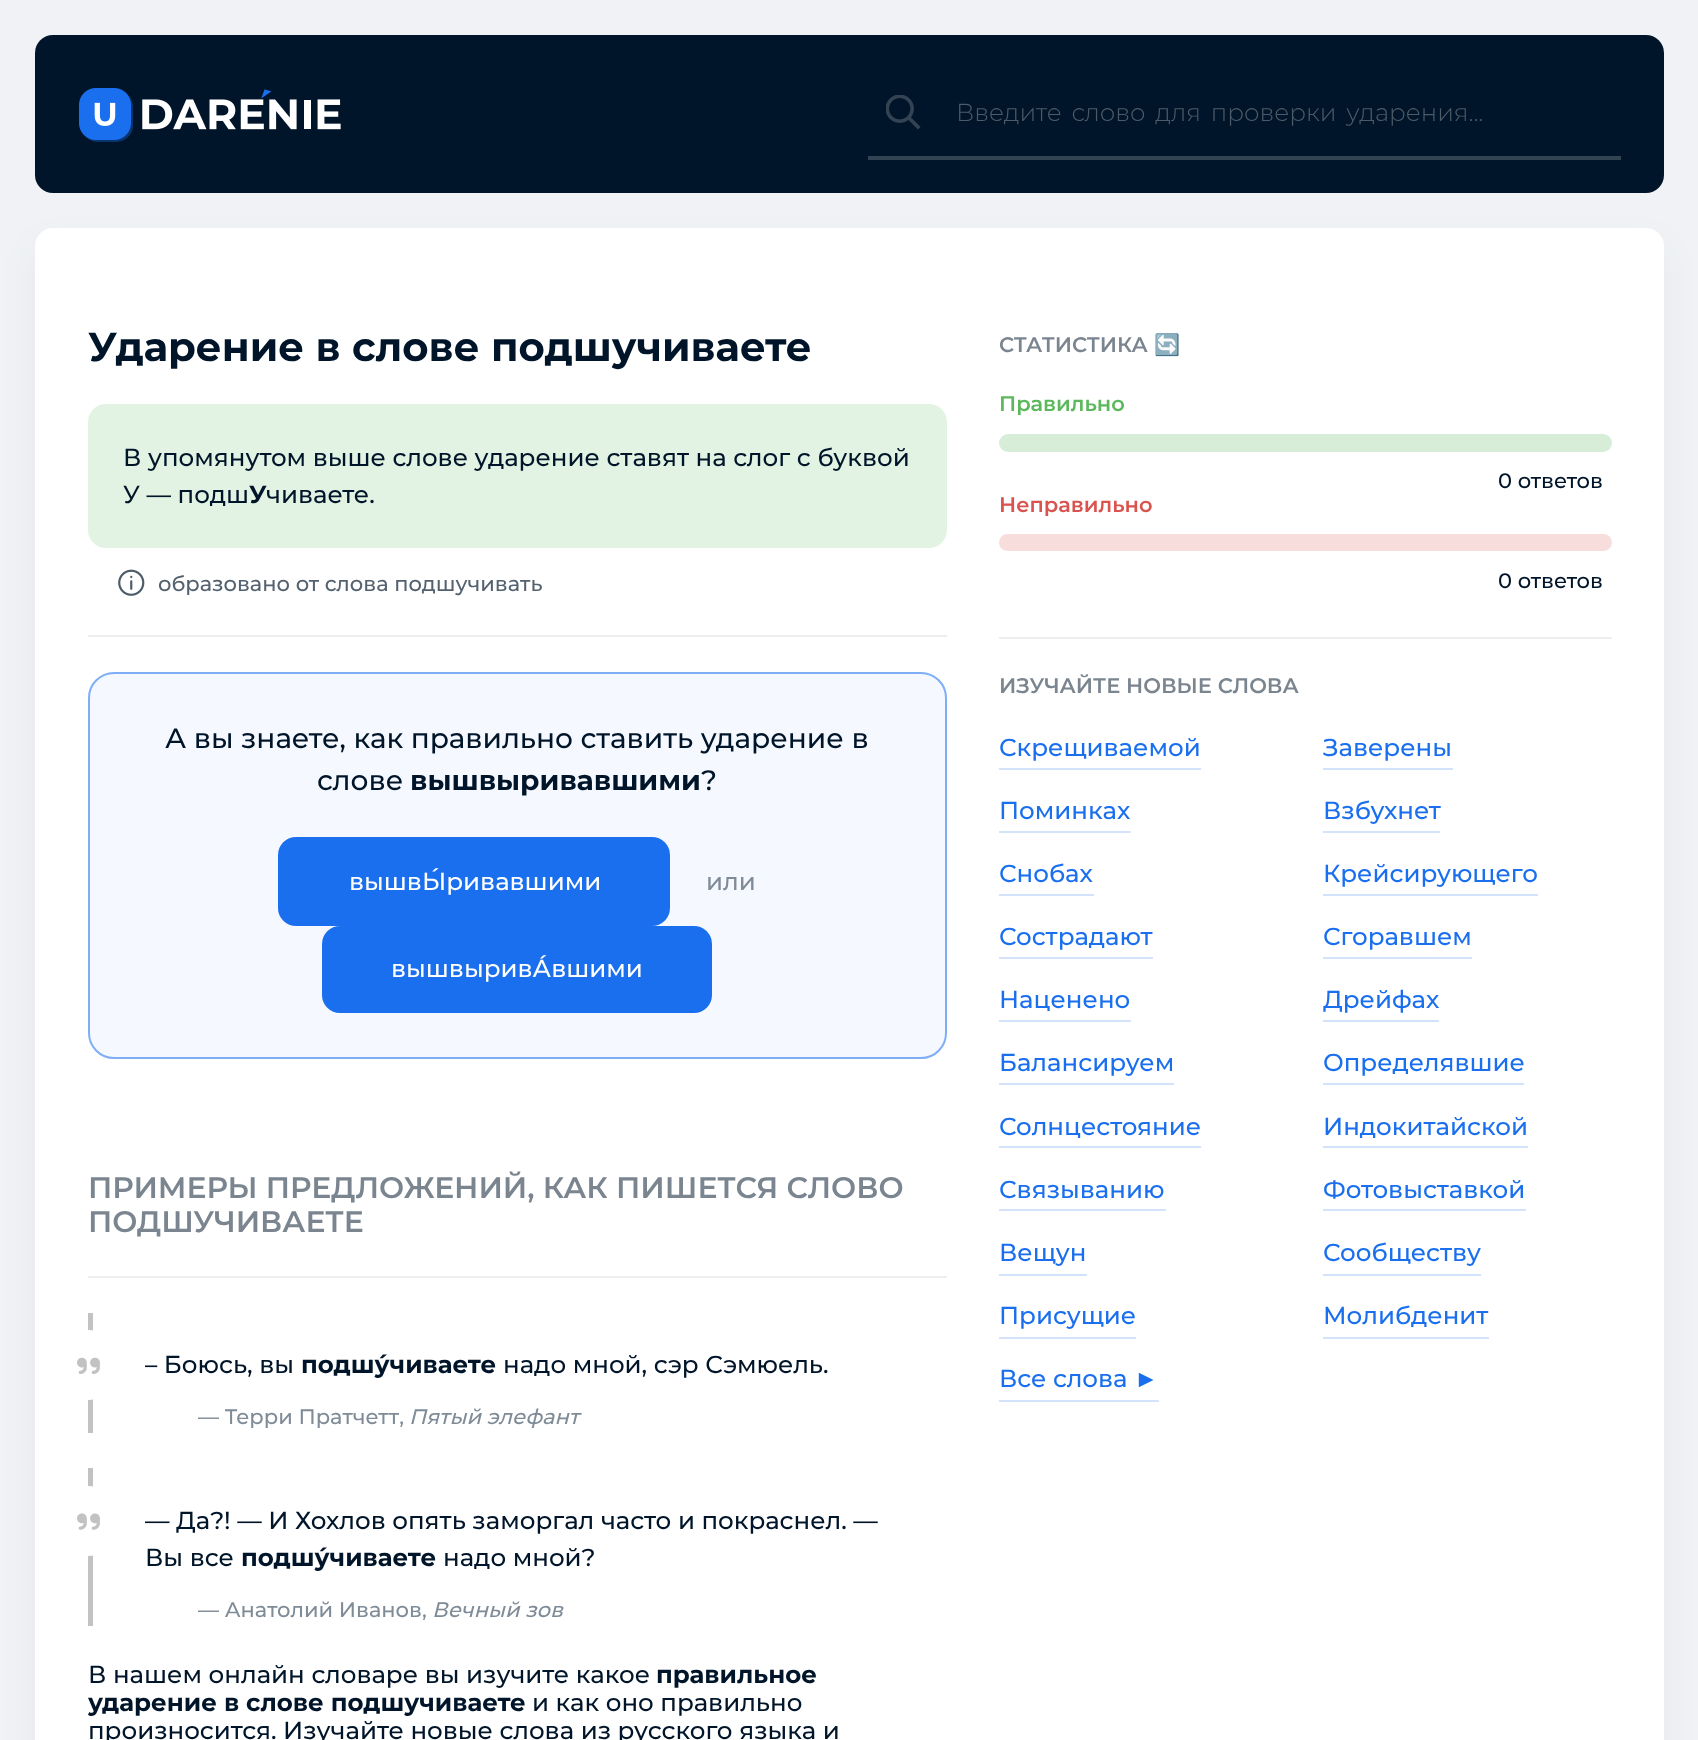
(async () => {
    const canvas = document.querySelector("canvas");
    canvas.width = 1698;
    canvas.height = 1740;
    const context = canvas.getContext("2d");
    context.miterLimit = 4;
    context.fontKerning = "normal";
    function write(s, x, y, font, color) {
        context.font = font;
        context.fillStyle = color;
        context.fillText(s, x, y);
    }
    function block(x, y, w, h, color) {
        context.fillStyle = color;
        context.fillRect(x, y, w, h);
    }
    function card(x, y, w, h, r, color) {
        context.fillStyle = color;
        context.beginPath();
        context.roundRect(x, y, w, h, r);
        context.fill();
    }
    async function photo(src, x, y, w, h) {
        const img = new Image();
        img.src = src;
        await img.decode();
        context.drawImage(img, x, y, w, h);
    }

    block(0, 0, 1698, 1740, "rgb(240, 242, 245)");
    card(35, 35, 1629, 158, 18, "rgb(0, 21, 41)");
    await photo("media/1.png", 79, 88, 262, 54);
    block(868, 156, 753, 4, "rgb(50, 67, 83)");
    await photo("media/2.png", 886, 95, 35, 35);
    context.wordSpacing = "3.5px";
    write("Введите слово для проверки ударения...", 956, 121, "300 24.5px Montserrat", "rgb(77, 91, 105)");
    context.fillStyle = "rgba(35, 54, 71, 0.05)";
    context.filter = "blur(17.5px)";
    context.beginPath();
    context.roundRect(35, 245, 1629, 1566, 18);
    context.fill();
    context.filter = "none";
    card(35, 228, 1629, 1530, 18, "rgb(255, 255, 255)");
    context.wordSpacing = "0px";
    write("Ударение в слове подшучиваете", 88, 361, "bold 40.25px Montserrat", "rgb(0, 21, 41)");
    card(88, 404, 859, 144, 18, "rgb(227, 243, 227)");
    write("В упомянутом выше слове ударение ставят на слог с буквой", 123, 466, "500 24.5px Montserrat", "rgb(0, 21, 41)");
    write("У — подш", 123, 503, "500 24.5px Montserrat", "rgb(0, 21, 41)");
    write("У", 249, 503, "bold 24.5px Montserrat", "rgb(0, 21, 41)");
    write("чиваете.", 266, 503, "500 24.5px Montserrat", "rgb(0, 21, 41)");
    await photo("media/3.png", 118, 569, 27, 27);
    write("образовано от слова подшучивать", 158, 591, "500 21px Montserrat", "rgb(84, 98, 112)");
    block(88, 635, 859, 2, "rgb(238, 238, 238)");
    card(88, 672, 859, 387, 26, "rgb(245, 249, 255)");
    context.beginPath();
    context.roundRect(89, 673, 857, 385, 25);
    context.strokeStyle = "rgba(26, 111, 239, 0.54)";
    context.lineWidth = 2;
    context.stroke();
    write("А вы знаете, как правильно ставить ударение в", 165, 748, "500 28px Montserrat", "rgb(0, 21, 41)");
    write("слове", 317, 790, "500 28px Montserrat", "rgb(0, 21, 41)");
    write("вышвыривавшими", 410, 790, "bold 28px Montserrat", "rgb(0, 21, 41)");
    write("?", 701, 790, "500 28px Montserrat", "rgb(0, 21, 41)");
    card(278, 837, 392, 89, 18, "rgb(26, 111, 239)");
    write("вышвЫ́ривавшими", 349, 890, "500 24.5px Montserrat", "rgb(255, 255, 255)");
    write("или", 706, 890, "500 24.5px Montserrat", "rgb(127, 140, 152)");
    card(322, 926, 390, 87, 18, "rgb(26, 111, 239)");
    write("вышвыривА́вшими", 391, 977, "500 24.5px Montserrat", "rgb(255, 255, 255)");
    write("ПРИМЕРЫ ПРЕДЛОЖЕНИЙ, КАК ПИШЕТСЯ СЛОВО", 88, 1198, "600 29.75px Montserrat", "rgb(122, 133, 144)");
    write("ПОДШУЧИВАЕТЕ", 88, 1232, "600 29.75px Montserrat", "rgb(122, 133, 144)");
    block(88, 1276, 859, 2, "rgb(238, 238, 238)");
    block(88, 1313, 5, 120, "rgb(194, 194, 194)");
    context.fillStyle = "rgb(255, 255, 255)";
    context.beginPath();
    context.arc(89, 1365, 35, 0, Math.PI * 2);
    context.fill();
    write("– Боюсь, вы", 145, 1373, "500 24.5px Montserrat", "rgb(0, 21, 41)");
    write("подшу́чиваете", 301, 1373, "bold 24.5px Montserrat", "rgb(0, 21, 41)");
    write("надо мной, сэр Сэмюель.", 503, 1373, "500 24.5px Montserrat", "rgb(0, 21, 41)");
    write("— Терри Пратчетт,", 198, 1424, "500 21px Montserrat", "rgb(127, 140, 152)");
    write("Пятый элефант", 409, 1424, "italic 500 21px Montserrat", "rgb(127, 140, 152)");
    await photo("media/4.png", 77, 1357, 23, 17);
    block(88, 1468, 5, 158, "rgb(194, 194, 194)");
    context.fillStyle = "rgb(255, 255, 255)";
    context.beginPath();
    context.arc(89, 1521, 35, 0, Math.PI * 2);
    context.fill();
    write("— Да?! — И Хохлов опять заморгал часто и покраснел. —", 145, 1529, "500 24.5px Montserrat", "rgb(0, 21, 41)");
    write("Вы все", 145, 1566, "500 24.5px Montserrat", "rgb(0, 21, 41)");
    write("подшу́чиваете", 241, 1566, "bold 24.5px Montserrat", "rgb(0, 21, 41)");
    write("надо мной?", 443, 1566, "500 24.5px Montserrat", "rgb(0, 21, 41)");
    write("— Анатолий Иванов,", 198, 1617, "500 21px Montserrat", "rgb(127, 140, 152)");
    write("Вечный зов", 432, 1617, "italic 500 21px Montserrat", "rgb(127, 140, 152)");
    await photo("media/5.png", 77, 1513, 23, 17);
    write("В нашем онлайн словаре вы изучите какое", 88, 1683, "500 24.5px Montserrat", "rgb(0, 21, 41)");
    write("правильное", 656, 1683, "bold 24.5px Montserrat", "rgb(0, 21, 41)");
    write("ударение в слове подшучиваете", 88, 1711, "bold 24.5px Montserrat", "rgb(0, 21, 41)");
    write("и как оно правильно", 532, 1711, "500 24.5px Montserrat", "rgb(0, 21, 41)");
    write("произносится. Изучайте новые слова из русского языка и", 88, 1739, "500 24.5px Montserrat", "rgb(0, 21, 41)");
    write("СТАТИСТИКА", 999, 352, "600 21px Montserrat", "rgb(122, 133, 144)");
    write("🔄", 1154, 352, "bold 21px Noto Color Emoji", "rgb(26, 111, 239)");
    write("Правильно", 999, 411, "600 21px Montserrat", "rgb(92, 184, 92)");
    card(999, 434, 613, 18, 9, "rgb(215, 237, 215)");
    write("0 ответов", 1498, 488, "500 21px Montserrat", "rgb(0, 21, 41)");
    write("Неправильно", 999, 512, "600 21px Montserrat", "rgb(217, 83, 79)");
    card(999, 534, 613, 17, 8.5, "rgb(248, 221, 221)");
    write("0 ответов", 1498, 588, "500 21px Montserrat", "rgb(0, 21, 41)");
    block(999, 637, 613, 2, "rgb(238, 238, 238)");
    write("ИЗУЧАЙТЕ НОВЫЕ СЛОВА", 999, 693, "600 21px Montserrat", "rgb(122, 133, 144)");
    write("Скрещиваемой", 999, 756, "500 24.5px Montserrat", "rgb(26, 111, 239)");
    block(999, 768, 202, 2, "rgb(211, 227, 252)");
    write("Заверены", 1323, 756, "500 24.5px Montserrat", "rgb(26, 111, 239)");
    block(1323, 768, 130, 2, "rgb(211, 227, 252)");
    write("Поминках", 999, 819, "500 24.5px Montserrat", "rgb(26, 111, 239)");
    block(999, 831, 132, 2, "rgb(211, 227, 252)");
    write("Взбухнет", 1323, 819, "500 24.5px Montserrat", "rgb(26, 111, 239)");
    block(1323, 831, 117, 2, "rgb(211, 227, 252)");
    write("Снобах", 999, 882, "500 24.5px Montserrat", "rgb(26, 111, 239)");
    block(999, 894, 95, 2, "rgb(211, 227, 252)");
    write("Крейсирующего", 1323, 882, "500 24.5px Montserrat", "rgb(26, 111, 239)");
    block(1323, 894, 215, 2, "rgb(211, 227, 252)");
    write("Сострадают", 999, 945, "500 24.5px Montserrat", "rgb(26, 111, 239)");
    block(999, 957, 154, 2, "rgb(211, 227, 252)");
    write("Сгоравшем", 1323, 945, "500 24.5px Montserrat", "rgb(26, 111, 239)");
    block(1323, 957, 149, 2, "rgb(211, 227, 252)");
    write("Наценено", 999, 1008, "500 24.5px Montserrat", "rgb(26, 111, 239)");
    block(999, 1020, 132, 2, "rgb(211, 227, 252)");
    write("Дрейфах", 1323, 1008, "500 24.5px Montserrat", "rgb(26, 111, 239)");
    block(1323, 1020, 116, 2, "rgb(211, 227, 252)");
    write("Балансируем", 999, 1071, "500 24.5px Montserrat", "rgb(26, 111, 239)");
    block(999, 1083, 175, 2, "rgb(211, 227, 252)");
    write("Определявшие", 1323, 1071, "500 24.5px Montserrat", "rgb(26, 111, 239)");
    block(1323, 1083, 201, 2, "rgb(211, 227, 252)");
    write("Солнцестояние", 999, 1135, "500 24.5px Montserrat", "rgb(26, 111, 239)");
    block(999, 1146, 202, 2, "rgb(211, 227, 252)");
    write("Индокитайской", 1323, 1135, "500 24.5px Montserrat", "rgb(26, 111, 239)");
    block(1323, 1146, 205, 2, "rgb(211, 227, 252)");
    write("Связыванию", 999, 1198, "500 24.5px Montserrat", "rgb(26, 111, 239)");
    block(999, 1209, 167, 2, "rgb(211, 227, 252)");
    write("Фотовыставкой", 1323, 1198, "500 24.5px Montserrat", "rgb(26, 111, 239)");
    block(1323, 1209, 203, 2, "rgb(211, 227, 252)");
    write("Вещун", 999, 1261, "500 24.5px Montserrat", "rgb(26, 111, 239)");
    block(999, 1274, 88, 2, "rgb(211, 227, 252)");
    write("Сообществу", 1323, 1261, "500 24.5px Montserrat", "rgb(26, 111, 239)");
    block(1323, 1274, 158, 2, "rgb(211, 227, 252)");
    write("Присущие", 999, 1324, "500 24.5px Montserrat", "rgb(26, 111, 239)");
    block(999, 1337, 137, 2, "rgb(211, 227, 252)");
    write("Молибденит", 1323, 1324, "500 24.5px Montserrat", "rgb(26, 111, 239)");
    block(1323, 1337, 166, 2, "rgb(211, 227, 252)");
    write("Все слова", 999, 1387, "500 24.5px Montserrat", "rgb(26, 111, 239)");
    write("►", 1134, 1387, "24.5px Liberation Sans", "rgb(26, 111, 239)");
    block(999, 1400, 160, 2, "rgb(211, 227, 252)");
})();
